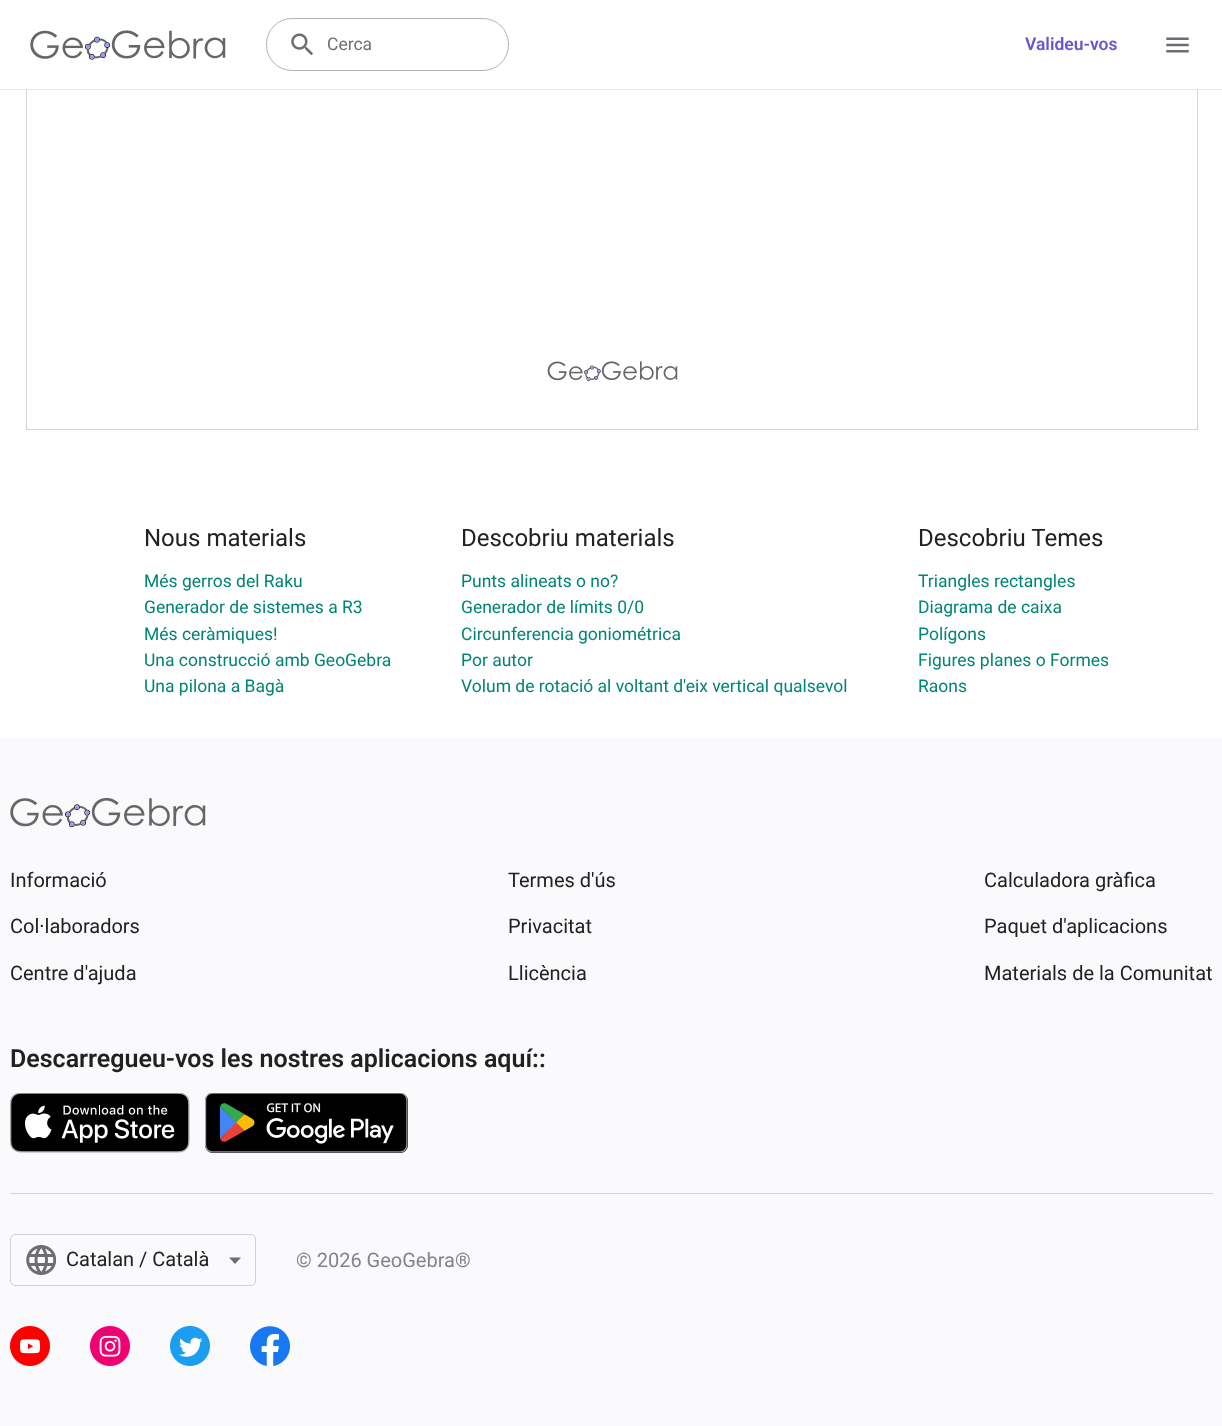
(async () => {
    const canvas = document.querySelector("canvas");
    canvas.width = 1222;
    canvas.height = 1426;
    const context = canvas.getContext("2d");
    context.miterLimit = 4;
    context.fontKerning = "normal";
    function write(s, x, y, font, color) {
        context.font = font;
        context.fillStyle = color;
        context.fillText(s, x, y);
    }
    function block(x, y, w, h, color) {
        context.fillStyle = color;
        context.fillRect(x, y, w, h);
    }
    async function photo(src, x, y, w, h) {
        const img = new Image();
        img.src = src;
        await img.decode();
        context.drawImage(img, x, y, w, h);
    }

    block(0, 0, 1222, 1426, "rgb(255, 255, 255)");
    await photo("media/4.png", 547, 361, 131, 20);
    context.strokeStyle = "rgb(211, 211, 211)";
    context.strokeRect(26.5, -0.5, 1171, 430);
    block(26, 0, 1172, 89, "rgb(255, 255, 255)");
    block(0, 89, 1222, 1, "rgb(230, 230, 235)");
    await photo("media/1.png", 30, 30, 196, 30);
    context.beginPath();
    context.roundRect(266.5, 18.5, 242, 52, 25.5);
    context.strokeStyle = "rgb(180, 179, 186)";
    context.stroke();
    await photo("media/2.png", 291, 33, 22, 23);
    write("Cerca", 327, 50, "17.5px Roboto", "rgb(110, 109, 115)");
    write("Valideu-vos", 1025, 50, "600 17.5px Roboto", "rgb(101, 87, 210)");
    await photo("media/3.png", 1166, 37, 23, 16);
    write("Nous materials", 144, 546, "24px Roboto", "rgb(33, 33, 33)");
    write("Més gerros del Raku", 144, 587, "17.5px Roboto", "rgb(0, 132, 117)");
    write("Generador de sistemes a R3", 144, 613, "17.5px Roboto", "rgb(0, 132, 117)");
    write("Més ceràmiques!", 144, 640, "17.5px Roboto", "rgb(0, 132, 117)");
    write("Una construcció amb GeoGebra", 144, 666, "17.5px Roboto", "rgb(0, 132, 117)");
    write("Una pilona a Bagà", 144, 692, "17.5px Roboto", "rgb(0, 132, 117)");
    write("Descobriu materials", 461, 546, "24px Roboto", "rgb(33, 33, 33)");
    write("Punts alineats o no?", 461, 587, "17.5px Roboto", "rgb(0, 132, 117)");
    write("Generador de límits 0/0", 461, 613, "17.5px Roboto", "rgb(0, 132, 117)");
    write("Circunferencia goniométrica", 461, 640, "17.5px Roboto", "rgb(0, 132, 117)");
    write("Por autor", 461, 666, "17.5px Roboto", "rgb(0, 132, 117)");
    write("Volum de rotació al voltant d'eix vertical qualsevol", 461, 692, "17.5px Roboto", "rgb(0, 132, 117)");
    write("Descobriu Temes", 918, 546, "24px Roboto", "rgb(33, 33, 33)");
    write("Triangles rectangles", 918, 587, "17.5px Roboto", "rgb(0, 132, 117)");
    write("Diagrama de caixa", 918, 613, "17.5px Roboto", "rgb(0, 132, 117)");
    write("Polígons", 918, 640, "17.5px Roboto", "rgb(0, 132, 117)");
    write("Figures planes o Formes", 918, 666, "17.5px Roboto", "rgb(0, 132, 117)");
    write("Raons", 918, 692, "17.5px Roboto", "rgb(0, 132, 117)");
    block(0, 738, 1222, 688, "rgb(250, 250, 252)");
    await photo("media/5.png", 10, 798, 196, 30);
    write("Informació", 10, 887, "20px Roboto", "rgb(33, 33, 33)");
    write("Col·laboradors", 10, 933, "20px Roboto", "rgb(33, 33, 33)");
    write("Centre d'ajuda", 10, 980, "20px Roboto", "rgb(33, 33, 33)");
    write("Termes d'ús", 508, 887, "20px Roboto", "rgb(33, 33, 33)");
    write("Privacitat", 508, 933, "20px Roboto", "rgb(33, 33, 33)");
    write("Llicència", 508, 980, "20px Roboto", "rgb(33, 33, 33)");
    write("Calculadora gràfica", 984, 887, "20px Roboto", "rgb(33, 33, 33)");
    write("Paquet d'aplicacions", 984, 933, "20px Roboto", "rgb(33, 33, 33)");
    write("Materials de la Comunitat", 984, 980, "20px Roboto", "rgb(33, 33, 33)");
    write("Descarregueu-vos les nostres aplicacions aquí::", 10, 1067, "600 25px Roboto", "rgb(33, 33, 33)");
    await photo("media/6.png", 10, 1093, 180, 60);
    await photo("media/7.png", 205, 1093, 203, 60);
    block(10, 1193, 1203, 1, "rgb(209, 208, 214)");
    context.beginPath();
    context.roundRect(10.5, 1234.5, 245, 51, 4.5);
    context.strokeStyle = "rgb(209, 208, 214)";
    context.stroke();
    await photo("media/8.png", 26, 1245, 30, 30);
    write("Catalan / Català", 66, 1266, "20px Roboto", "rgb(33, 33, 33)");
    context.fillStyle = "rgb(110, 109, 115)";
    context.beginPath();
    context.moveTo(229, 1257.5);
    context.lineTo(235, 1264);
    context.lineTo(241, 1257.5);
    context.closePath();
    context.fill();
    write("© 2026 GeoGebra®", 296, 1267, "20px Roboto", "rgb(133, 132, 138)");
    await photo("media/9.png", 10, 1326, 40, 40);
    await photo("media/10.png", 90, 1326, 40, 40);
    await photo("media/11.png", 170, 1326, 40, 40);
    await photo("media/12.png", 250, 1326, 40, 40);
})();
